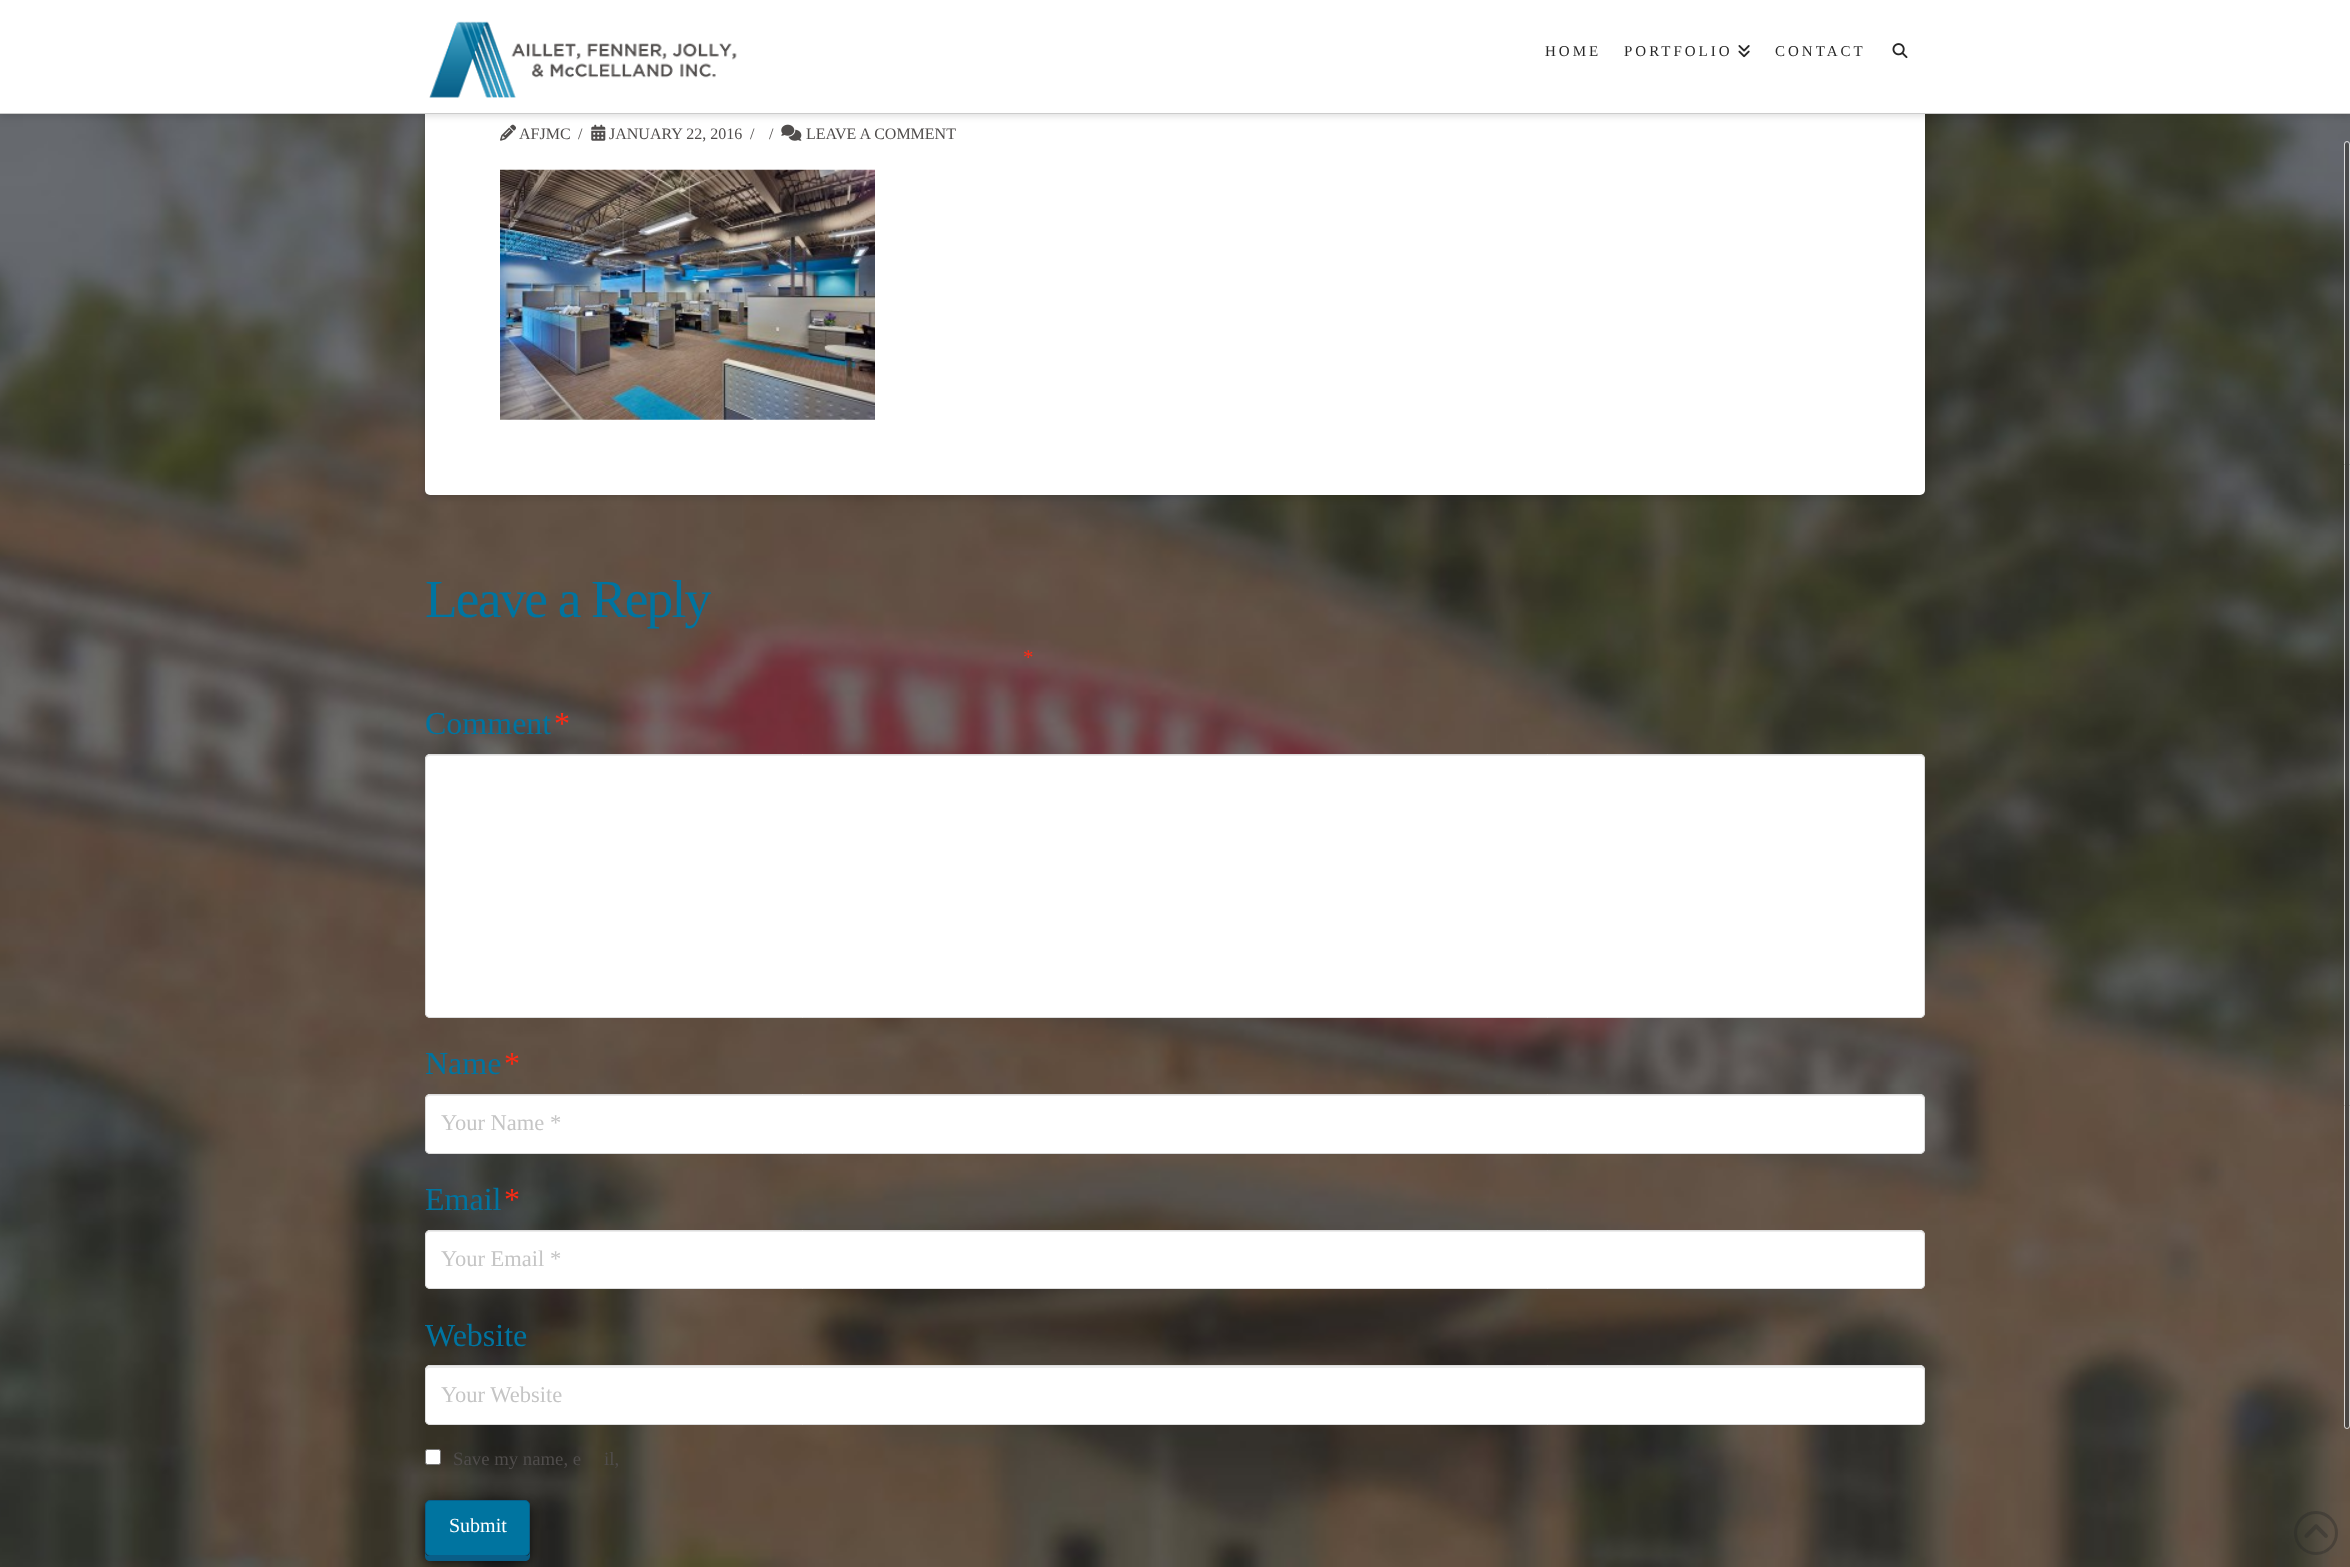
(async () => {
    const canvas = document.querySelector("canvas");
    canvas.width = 2350;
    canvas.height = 1567;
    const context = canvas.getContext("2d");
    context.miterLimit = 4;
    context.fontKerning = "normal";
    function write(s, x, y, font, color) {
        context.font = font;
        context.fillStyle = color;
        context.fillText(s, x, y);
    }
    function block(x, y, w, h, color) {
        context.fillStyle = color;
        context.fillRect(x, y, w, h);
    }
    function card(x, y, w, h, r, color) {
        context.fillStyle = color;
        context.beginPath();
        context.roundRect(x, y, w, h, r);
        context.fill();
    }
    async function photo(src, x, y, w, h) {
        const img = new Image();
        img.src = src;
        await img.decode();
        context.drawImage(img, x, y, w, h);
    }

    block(0, 0, 2350, 1567, "rgb(255, 255, 255)");
    await photo("media/9.png", 0, 114, 2350, 1453);
    context.fillStyle = "rgba(0, 0, 0, 0.13)";
    context.filter = "blur(3.5px)";
    context.beginPath();
    context.roundRect(425, -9, 1500, 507, 5);
    context.fill();
    context.filter = "none";
    card(425, -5, 1500, 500, 5, "rgb(255, 255, 255)");
    await photo("media/4.png", 500, 124, 16, 17);
    await photo("media/5.png", 591, 124, 15, 17);
    await photo("media/6.png", 781, 124, 21, 17);
    context.fillStyle = "rgba(0, 0, 0, 0.13)";
    context.filter = "blur(3.5px)";
    context.beginPath();
    context.rect(0, 3, 2350, 113);
    context.fill();
    context.filter = "none";
    block(0, 0, 2350, 113, "rgb(255, 255, 255)");
    block(0, 113, 2350, 1, "rgb(204, 204, 204)");
    await photo("media/1.png", 429, 21, 308, 77);
    context.letterSpacing = "3px";
    write("HOME", 1545, 56, "15px Liberation Serif", "rgb(39, 39, 39)");
    write("PORTFOLIO", 1624, 56, "15px Liberation Serif", "rgb(39, 39, 39)");
    await photo("media/2.png", 1738, 45, 12, 13);
    write("CONTACT", 1775, 56, "15px Liberation Serif", "rgb(39, 39, 39)");
    await photo("media/3.png", 1892, 43, 16, 16);
    context.letterSpacing = "0px";
    write("AFJMC", 519, 139, "16px Liberation Serif", "rgb(80, 77, 76)");
    write("/", 578, 139, "16px Liberation Serif", "rgb(80, 77, 76)");
    write("JANUARY 22, 2016", 609, 139, "16px Liberation Serif", "rgb(80, 77, 76)");
    write("/", 750, 139, "16px Liberation Serif", "rgb(80, 77, 76)");
    write("/", 769, 139, "16px Liberation Serif", "rgb(80, 77, 76)");
    write("LEAVE A COMMENT", 806, 139, "16px Liberation Serif", "rgb(80, 77, 76)");
    await photo("media/7.png", 500, 169, 375, 251);
    context.letterSpacing = "-1.9px";
    write("Leave a Reply", 425, 617, "53.5px Liberation Serif", "rgb(0, 116, 160)");
    context.letterSpacing = "0px";
    write("*", 1023, 664, "21px Liberation Serif", "rgb(255, 42, 19)");
    write("Comment", 425, 734, "32px Liberation Serif", "rgb(0, 116, 160)");
    write("*", 554, 734, "32px Liberation Serif", "rgb(255, 42, 19)");
    card(425, 754, 1500, 264, 5, "rgb(255, 255, 255)");
    context.fillStyle = "rgb(236, 236, 236)";
    context.beginPath();
    context.moveTo(430, 756);
    context.lineTo(1920, 756);
    context.bezierCurveTo(1922, 756, 1924, 758, 1924, 760);
    context.lineTo(1924, 759);
    context.bezierCurveTo(1924, 757, 1922, 755, 1920, 755);
    context.lineTo(430, 755);
    context.bezierCurveTo(428, 755, 426, 757, 426, 759);
    context.lineTo(426, 760);
    context.bezierCurveTo(426, 758, 428, 756, 430, 756);
    context.closePath();
    context.fill();
    context.beginPath();
    context.roundRect(425.5, 754.5, 1499, 263, 4.5);
    context.strokeStyle = "rgb(221, 221, 221)";
    context.stroke();
    write("Name", 425, 1074, "32px Liberation Serif", "rgb(0, 116, 160)");
    write("*", 504, 1074, "32px Liberation Serif", "rgb(255, 42, 19)");
    card(425, 1094, 1500, 60, 5, "rgb(255, 255, 255)");
    context.fillStyle = "rgb(236, 236, 236)";
    context.beginPath();
    context.moveTo(430, 1096);
    context.lineTo(1920, 1096);
    context.bezierCurveTo(1922, 1096, 1924, 1098, 1924, 1100);
    context.lineTo(1924, 1099);
    context.bezierCurveTo(1924, 1097, 1922, 1095, 1920, 1095);
    context.lineTo(430, 1095);
    context.bezierCurveTo(428, 1095, 426, 1097, 426, 1099);
    context.lineTo(426, 1100);
    context.bezierCurveTo(426, 1098, 428, 1096, 430, 1096);
    context.closePath();
    context.fill();
    context.beginPath();
    context.roundRect(425.5, 1094.5, 1499, 59, 4.5);
    context.stroke();
    write("Your Name *", 441, 1130, "22.5px Liberation Serif", "rgb(197, 197, 197)");
    write("Email", 425, 1210, "32px Liberation Serif", "rgb(0, 116, 160)");
    write("*", 504, 1210, "32px Liberation Serif", "rgb(255, 42, 19)");
    card(425, 1230, 1500, 59, 5, "rgb(255, 255, 255)");
    context.fillStyle = "rgb(236, 236, 236)";
    context.beginPath();
    context.moveTo(430, 1232);
    context.lineTo(1920, 1232);
    context.bezierCurveTo(1922, 1232, 1924, 1234, 1924, 1236);
    context.lineTo(1924, 1235);
    context.bezierCurveTo(1924, 1233, 1922, 1231, 1920, 1231);
    context.lineTo(430, 1231);
    context.bezierCurveTo(428, 1231, 426, 1233, 426, 1235);
    context.lineTo(426, 1236);
    context.bezierCurveTo(426, 1234, 428, 1232, 430, 1232);
    context.closePath();
    context.fill();
    context.beginPath();
    context.roundRect(425.5, 1230.5, 1499, 58, 4.5);
    context.stroke();
    write("Your Email *", 441, 1266, "22.5px Liberation Serif", "rgb(197, 197, 197)");
    write("Website", 425, 1346, "32px Liberation Serif", "rgb(0, 116, 160)");
    card(425, 1365, 1500, 60, 5, "rgb(255, 255, 255)");
    context.fillStyle = "rgb(236, 236, 236)";
    context.beginPath();
    context.moveTo(430, 1368);
    context.lineTo(1920, 1368);
    context.bezierCurveTo(1922, 1368, 1924, 1369, 1924, 1371);
    context.lineTo(1924, 1370);
    context.bezierCurveTo(1924, 1368, 1922, 1366, 1920, 1366);
    context.lineTo(430, 1366);
    context.bezierCurveTo(428, 1366, 426, 1368, 426, 1370);
    context.lineTo(426, 1371);
    context.bezierCurveTo(426, 1369, 428, 1368, 430, 1368);
    context.closePath();
    context.fill();
    context.beginPath();
    context.roundRect(425.5, 1365.5, 1499, 59, 4.5);
    context.stroke();
    write("Your Website", 441, 1402, "22.5px Liberation Serif", "rgb(197, 197, 197)");
    context.fillStyle = "rgb(255, 255, 255)";
    context.beginPath();
    context.roundRect(425.5, 1449.5, 15, 15, 2);
    context.fill();
    context.strokeStyle = "rgb(118, 118, 118)";
    context.stroke();
    write("Save my name, e", 453, 1465, "18.75px Liberation Serif", "rgb(80, 77, 76)");
    write("il,", 604, 1465, "18.75px Liberation Serif", "rgb(80, 77, 76)");
    context.fillStyle = "rgba(0, 0, 0, 0.75)";
    context.filter = "blur(5.5px)";
    context.beginPath();
    context.roundRect(425, 1505, 105, 56, 5);
    context.fill();
    context.filter = "none";
    context.fillStyle = "rgb(9, 94, 136)";
    context.beginPath();
    context.moveTo(425, 1551);
    context.lineTo(425, 1556);
    context.bezierCurveTo(425, 1559, 427, 1561, 430, 1561);
    context.lineTo(525, 1561);
    context.bezierCurveTo(528, 1561, 530, 1559, 530, 1556);
    context.lineTo(530, 1551);
    context.bezierCurveTo(530, 1554, 528, 1556, 525, 1556);
    context.lineTo(430, 1556);
    context.bezierCurveTo(427, 1556, 425, 1554, 425, 1551);
    context.closePath();
    context.fill();
    context.fillStyle = "rgb(0, 116, 160)";
    context.beginPath();
    context.roundRect(425.5, 1500.5, 104, 55, 4.5);
    context.fill();
    context.strokeStyle = "rgb(9, 94, 136)";
    context.stroke();
    write("Submit", 449, 1532, "20px Liberation Serif", "rgb(255, 255, 255)");
    context.beginPath();
    context.arc(2316, 1533, 20.5, 0, Math.PI * 2);
    context.strokeStyle = "rgba(39, 39, 39, 0.38)";
    context.lineWidth = 3;
    context.stroke();
    await photo("media/8.png", 2304, 1524, 24, 14);
    card(2345, 143, 4, 1285, 2, "rgba(66, 66, 66, 0.77)");
    context.beginPath();
    context.roundRect(2344.5, 141.5, 5, 1287, 2.5);
    context.strokeStyle = "rgba(255, 255, 255, 0.77)";
    context.lineWidth = 1;
    context.stroke();
})();
